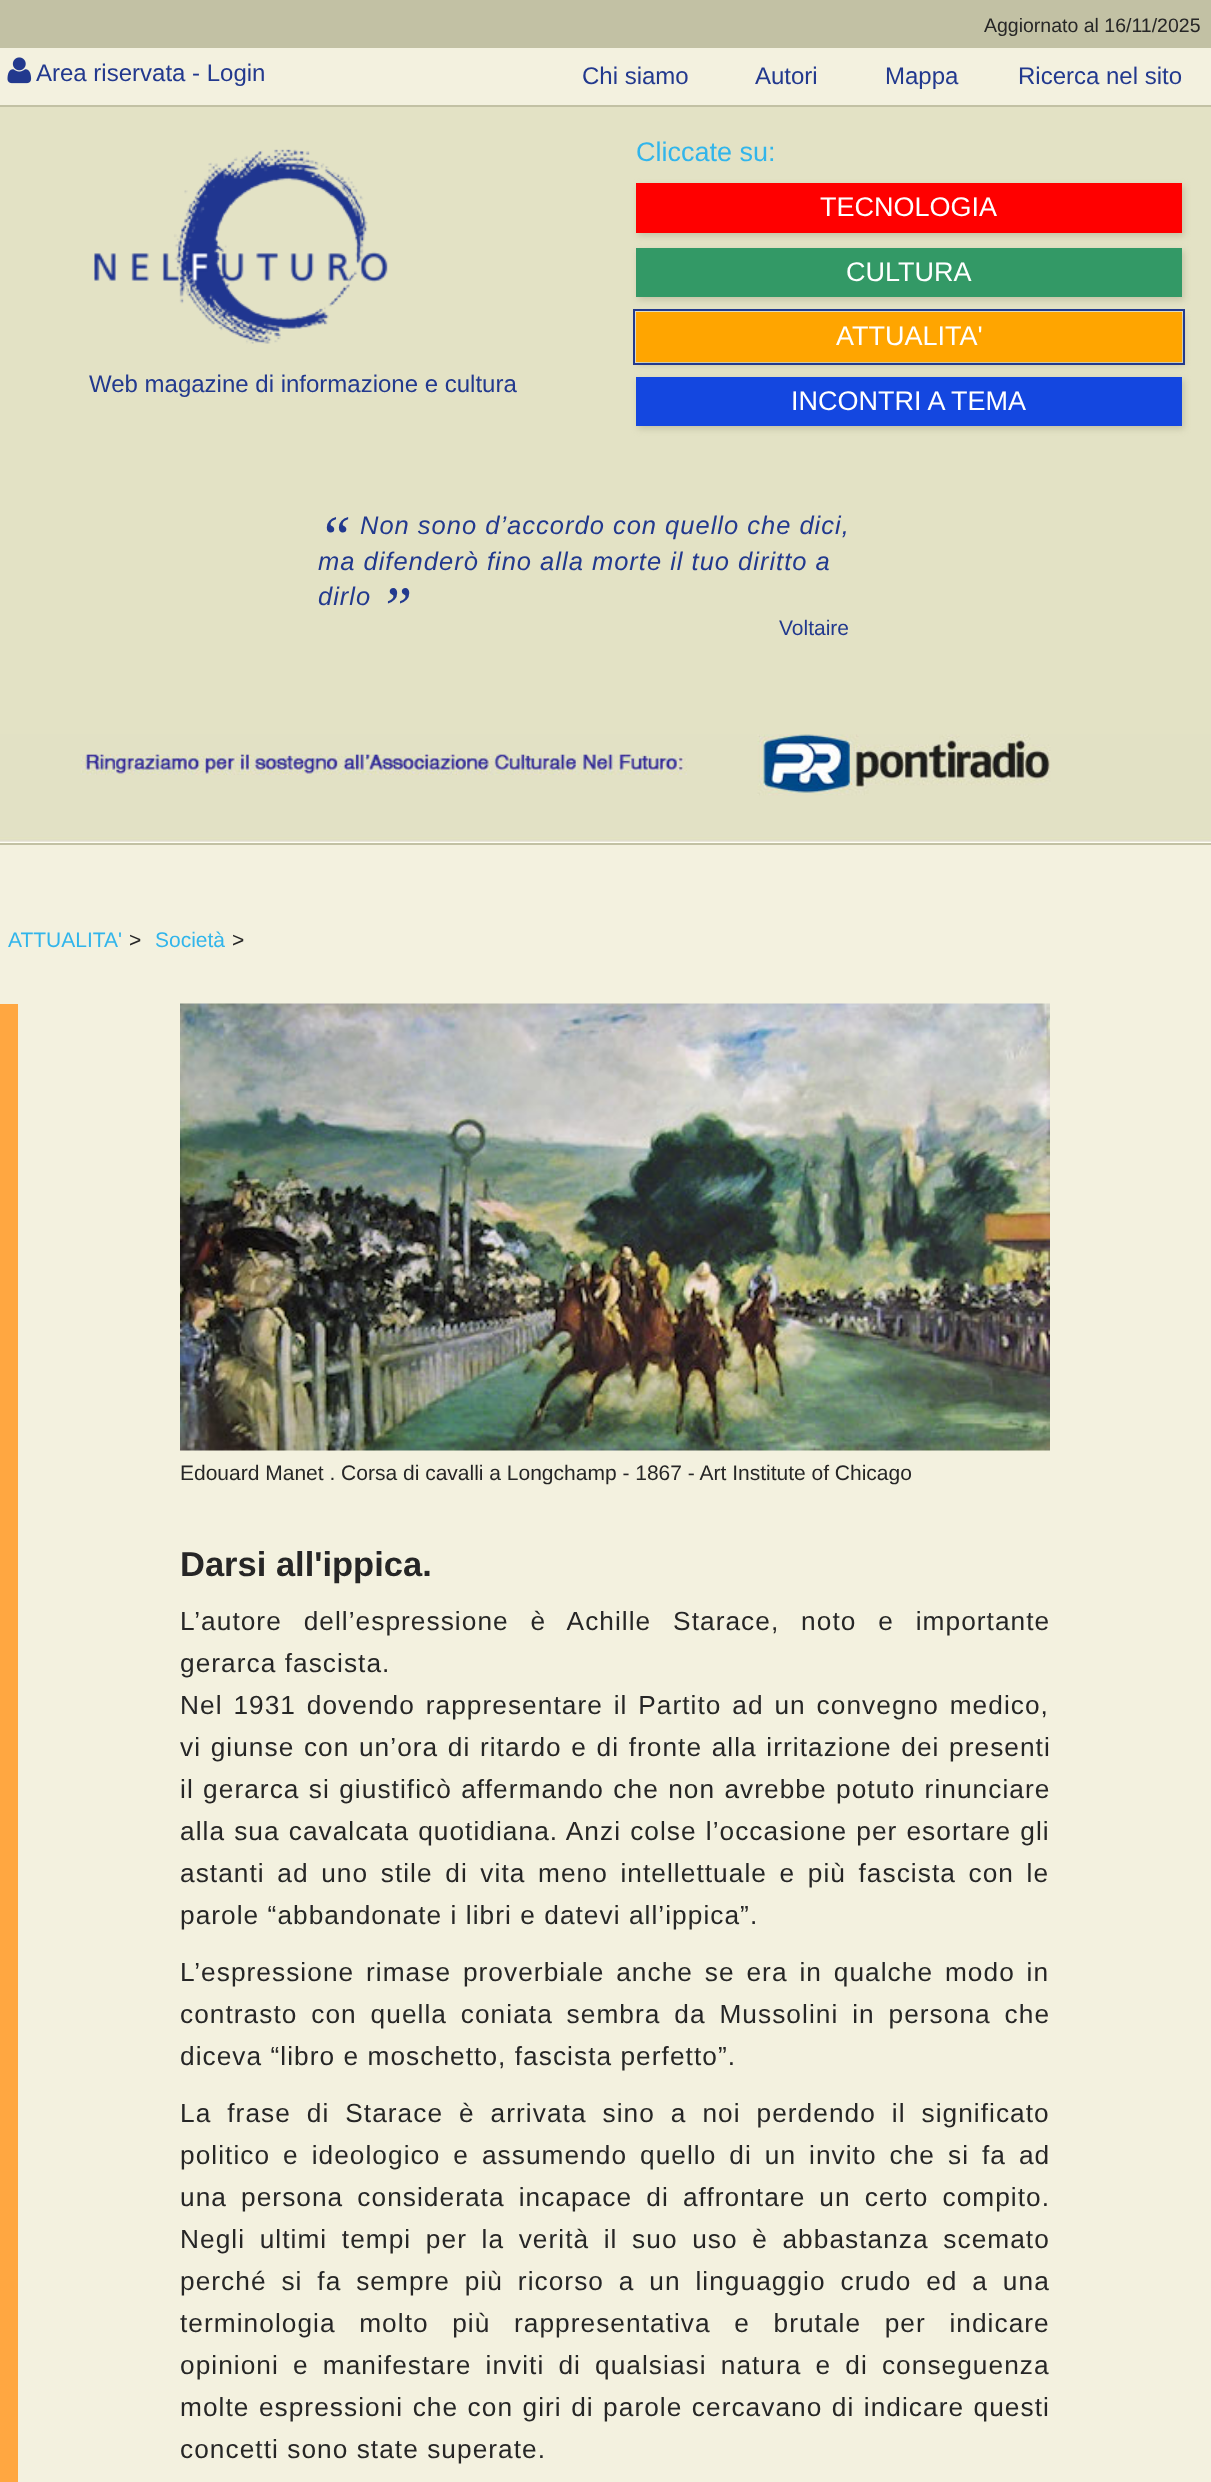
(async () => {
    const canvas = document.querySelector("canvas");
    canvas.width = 1211;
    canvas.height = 2482;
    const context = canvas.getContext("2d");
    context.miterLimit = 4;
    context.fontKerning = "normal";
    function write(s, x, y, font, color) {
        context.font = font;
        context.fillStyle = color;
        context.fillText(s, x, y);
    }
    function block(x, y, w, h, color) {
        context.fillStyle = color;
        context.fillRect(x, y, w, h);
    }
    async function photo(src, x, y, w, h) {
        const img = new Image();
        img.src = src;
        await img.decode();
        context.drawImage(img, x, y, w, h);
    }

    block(0, 0, 1211, 2482, "rgb(243, 241, 223)");
    block(0, 0, 1211, 48, "rgb(194, 193, 164)");
    write("Aggiornato al 16/11/2025", 984, 32, "19.5px Liberation Sans", "rgb(38, 38, 38)");
    await photo("media/1.png", 7, 57, 25, 27);
    write("Area riservata - Login", 36, 81, "24px Liberation Sans", "rgb(34, 57, 142)");
    write("Chi siamo", 582, 84, "24px Liberation Sans", "rgb(34, 57, 142)");
    write("Autori", 755, 84, "24px Liberation Sans", "rgb(34, 57, 142)");
    write("Mappa", 885, 84, "24px Liberation Sans", "rgb(34, 57, 142)");
    write("Ricerca nel sito", 1018, 84, "24px Liberation Sans", "rgb(34, 57, 142)");
    block(0, 107, 1211, 627, "rgb(227, 226, 197)");
    block(0, 105, 1211, 2, "rgb(194, 193, 164)");
    block(0, 843, 1211, 2, "rgb(194, 193, 164)");
    await photo("media/2.png", 94, 149, 294, 195);
    write("Web magazine di informazione e cultura", 89, 392, "24px Liberation Sans", "rgb(34, 57, 142)");
    write("Cliccate su:", 636, 161, "27px Liberation Sans", "rgb(49, 181, 235)");
    context.fillStyle = "rgba(194, 193, 164, 0.92)";
    context.filter = "blur(3px)";
    context.beginPath();
    context.rect(638, 186, 546, 50);
    context.fill();
    context.filter = "none";
    block(636, 183, 546, 50, "rgb(255, 0, 0)");
    write("TECNOLOGIA", 820, 216, "27px Liberation Sans", "rgb(255, 255, 255)");
    context.fillStyle = "rgba(194, 193, 164, 0.92)";
    context.filter = "blur(3px)";
    context.beginPath();
    context.rect(638, 251, 546, 49);
    context.fill();
    context.filter = "none";
    block(636, 248, 546, 49, "rgb(51, 153, 102)");
    write("CULTURA", 846, 281, "27px Liberation Sans", "rgb(255, 255, 255)");
    context.fillStyle = "rgba(194, 193, 164, 0.92)";
    context.filter = "blur(3px)";
    context.beginPath();
    context.rect(638, 315, 546, 50);
    context.fill();
    context.filter = "none";
    block(636, 312, 546, 50, "rgb(255, 165, 0)");
    context.strokeStyle = "rgb(34, 57, 142)";
    context.lineWidth = 2;
    context.strokeRect(634, 310, 550, 54);
    write("ATTUALITA'", 836, 345, "27px Liberation Sans", "rgb(255, 255, 255)");
    context.fillStyle = "rgba(194, 193, 164, 0.92)";
    context.filter = "blur(3px)";
    context.beginPath();
    context.rect(638, 380, 546, 49);
    context.fill();
    context.filter = "none";
    block(636, 377, 546, 49, "rgb(20, 71, 224)");
    write("INCONTRI A TEMA", 791, 410, "27px Liberation Sans", "rgb(255, 255, 255)");
    context.letterSpacing = "1px";
    write("“", 318, 557, "italic 60px Liberation Serif", "rgb(34, 57, 142)");
    write("Non sono d’accordo con quello che dici,", 360, 534, "italic 25.5px Liberation Sans", "rgb(34, 57, 142)");
    write("ma difenderò fino alla morte il tuo diritto a", 318, 570, "italic 25.5px Liberation Sans", "rgb(34, 57, 142)");
    write("dirlo", 318, 605, "italic 25.5px Liberation Sans", "rgb(34, 57, 142)");
    write("”", 379, 628, "italic 60px Liberation Serif", "rgb(34, 57, 142)");
    context.letterSpacing = "0px";
    write("Voltaire", 779, 635, "21px Liberation Sans", "rgb(34, 57, 142)");
    await photo("media/3.png", 0, 734, 1211, 109);
    write("ATTUALITA'", 8, 947, "21px Liberation Sans", "rgb(49, 181, 235)");
    write(">", 129, 947, "21px Liberation Sans", "rgb(38, 38, 38)");
    write("Società", 155, 947, "21px Liberation Sans", "rgb(49, 181, 235)");
    write(">", 232, 947, "21px Liberation Sans", "rgb(38, 38, 38)");
    block(0, 1004, 18, 1478, "rgb(255, 167, 65)");
    await photo("media/4.png", 180, 1003, 870, 448);
    write("Edouard Manet . Corsa di cavalli a Longchamp - 1867 - Art Institute of Chicago", 180, 1480, "21px Liberation Sans", "rgb(38, 38, 38)");
    write("Darsi all'ippica.", 180, 1576, "bold 34.5px Liberation Sans", "rgb(38, 38, 38)");
    context.letterSpacing = "1.05px";
    context.wordSpacing = "13.5px";
    write("L’autore dell’espressione è Achille Starace, noto e importante", 180, 1630, "26.25px Liberation Sans", "rgb(38, 38, 38)");
    context.wordSpacing = "0px";
    write("gerarca fascista.", 180, 1672, "26.25px Liberation Sans", "rgb(38, 38, 38)");
    context.wordSpacing = "2.5px";
    write("Nel 1931 dovendo rappresentare il Partito ad un convegno medico,", 180, 1714, "26.25px Liberation Sans", "rgb(38, 38, 38)");
    context.wordSpacing = "1.25px";
    write("vi giunse con un’ora di ritardo e di fronte alla irritazione dei presenti", 180, 1756, "26.25px Liberation Sans", "rgb(38, 38, 38)");
    context.wordSpacing = "1px";
    write("il gerarca si giustificò affermando che non avrebbe potuto rinunciare", 180, 1798, "26.25px Liberation Sans", "rgb(38, 38, 38)");
    context.wordSpacing = "0.75px";
    write("alla sua cavalcata quotidiana. Anzi colse l’occasione per esortare gli", 180, 1840, "26.25px Liberation Sans", "rgb(38, 38, 38)");
    context.wordSpacing = "4.25px";
    write("astanti ad uno stile di vita meno intellettuale e più fascista con le", 180, 1882, "26.25px Liberation Sans", "rgb(38, 38, 38)");
    context.wordSpacing = "0px";
    write("parole “abbandonate i libri e datevi all’ippica”.", 180, 1924, "26.25px Liberation Sans", "rgb(38, 38, 38)");
    context.wordSpacing = "3.5px";
    write("L’espressione rimase proverbiale anche se era in qualche modo in", 180, 1981, "26.25px Liberation Sans", "rgb(38, 38, 38)");
    context.wordSpacing = "5.5px";
    write("contrasto con quella coniata sembra da Mussolini in persona che", 180, 2023, "26.25px Liberation Sans", "rgb(38, 38, 38)");
    context.wordSpacing = "0px";
    write("diceva “libro e moschetto, fascista perfetto”.", 180, 2065, "26.25px Liberation Sans", "rgb(38, 38, 38)");
    context.wordSpacing = "7.6px";
    write("La frase di Starace è arrivata sino a noi perdendo il significato", 180, 2122, "26.25px Liberation Sans", "rgb(38, 38, 38)");
    context.wordSpacing = "4.6px";
    write("politico e ideologico e assumendo quello di un invito che si fa ad", 180, 2164, "26.25px Liberation Sans", "rgb(38, 38, 38)");
    context.wordSpacing = "5.75px";
    write("una persona considerata incapace di affrontare un certo compito.", 180, 2206, "26.25px Liberation Sans", "rgb(38, 38, 38)");
    context.wordSpacing = "6.25px";
    write("Negli ultimi tempi per la verità il suo uso è abbastanza scemato", 180, 2248, "26.25px Liberation Sans", "rgb(38, 38, 38)");
    context.wordSpacing = "6.5px";
    write("perché si fa sempre più ricorso a un linguaggio crudo ed a una", 180, 2290, "26.25px Liberation Sans", "rgb(38, 38, 38)");
    context.wordSpacing = "15.25px";
    write("terminologia molto più rappresentativa e brutale per indicare", 180, 2332, "26.25px Liberation Sans", "rgb(38, 38, 38)");
    context.wordSpacing = "5.75px";
    write("opinioni e manifestare inviti di qualsiasi natura e di conseguenza", 180, 2374, "26.25px Liberation Sans", "rgb(38, 38, 38)");
    context.wordSpacing = "1.1px";
    write("molte espressioni che con giri di parole cercavano di indicare questi", 180, 2416, "26.25px Liberation Sans", "rgb(38, 38, 38)");
    context.wordSpacing = "0px";
    write("concetti sono state superate.", 180, 2458, "26.25px Liberation Sans", "rgb(38, 38, 38)");
})();
